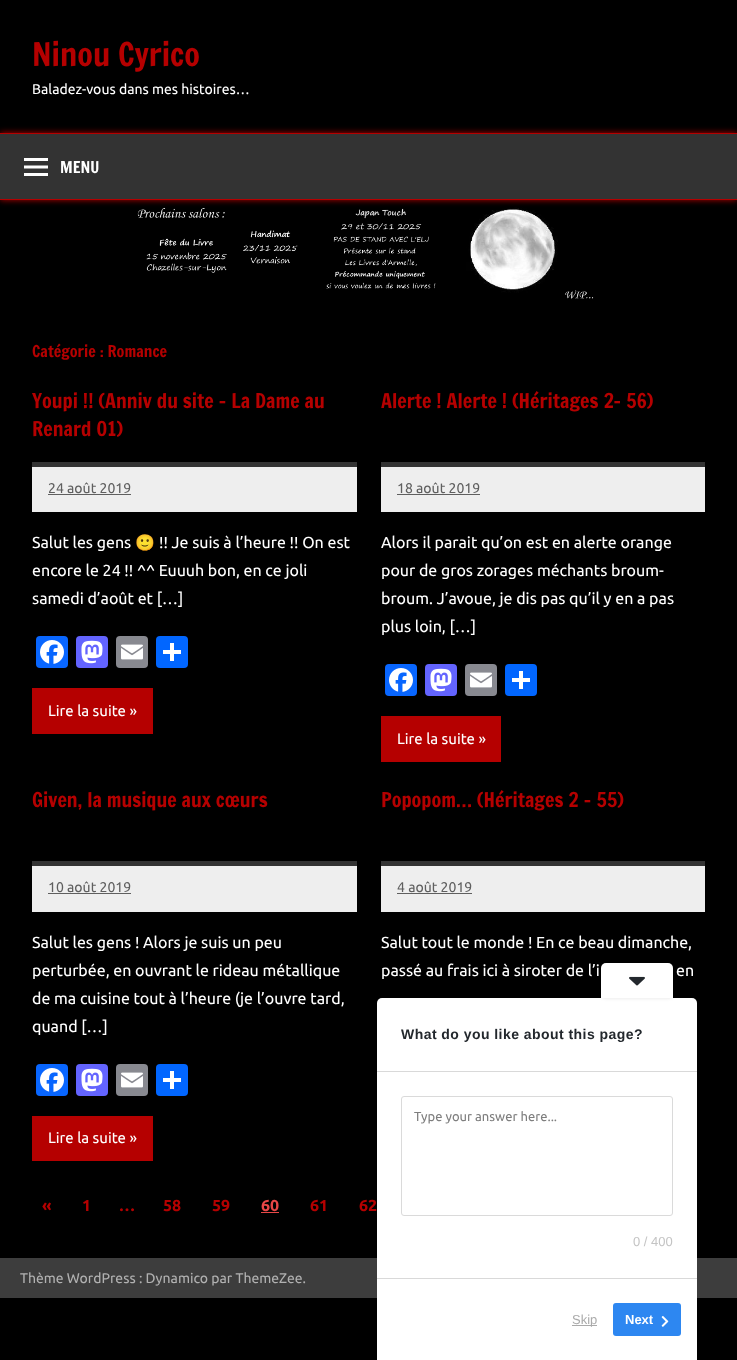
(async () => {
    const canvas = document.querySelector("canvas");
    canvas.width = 737;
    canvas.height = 1360;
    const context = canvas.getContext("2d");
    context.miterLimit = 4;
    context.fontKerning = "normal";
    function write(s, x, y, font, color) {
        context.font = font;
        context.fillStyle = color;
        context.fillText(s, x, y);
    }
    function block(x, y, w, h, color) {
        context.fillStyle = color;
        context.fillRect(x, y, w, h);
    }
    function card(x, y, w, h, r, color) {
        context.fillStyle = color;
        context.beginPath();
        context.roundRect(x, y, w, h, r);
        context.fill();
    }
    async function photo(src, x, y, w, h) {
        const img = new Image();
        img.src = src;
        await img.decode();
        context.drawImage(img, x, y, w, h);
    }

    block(0, 0, 737, 1360, "rgb(0, 0, 0)");
    write("Ninou Cyrico", 32, 66, "32px Francois One", "rgb(181, 0, 0)");
    write("Baladez-vous dans mes histoires…", 32, 94, "14px Ubuntu", "rgb(255, 255, 255)");
    await photo("media/2.png", 137, 207, 457, 92);
    context.fillStyle = "rgb(181, 0, 0)";
    context.filter = "blur(3px)";
    context.beginPath();
    context.rect(0, 133, 737, 67);
    context.fill();
    context.filter = "none";
    block(0, 134, 737, 65, "rgb(51, 51, 51)");
    block(0, 133, 737, 1, "rgb(181, 0, 0)");
    block(0, 199, 737, 1, "rgb(181, 0, 0)");
    await photo("media/1.png", 24, 158, 24, 18);
    write("MENU", 60, 173, "16px Francois One", "rgb(255, 255, 255)");
    write("Catégorie : Romance", 32, 357, "16px Francois One", "rgb(181, 0, 0)");
    block(32, 462, 325, 5, "rgb(51, 51, 51)");
    write("Youpi !! (Anniv du site – La Dame au", 32, 408, "20px Francois One", "rgb(181, 0, 0)");
    write("Renard 01)", 32, 436, "20px Francois One", "rgb(181, 0, 0)");
    block(32, 467, 325, 45, "rgb(238, 238, 238)");
    write("24 août 2019", 48, 493, "14px Ubuntu", "rgb(95, 95, 95)");
    block(48, 494, 83, 1, "rgb(95, 95, 95)");
    write("Salut les gens", 32, 548, "16px Ubuntu", "rgb(255, 255, 255)");
    write("🙂", 135, 548, "16px Noto Color Emoji", "rgb(255, 255, 255)");
    write("!! Je suis à l’heure !! On est", 159, 548, "16px Ubuntu", "rgb(255, 255, 255)");
    write("encore le 24 !! ^^ Euuuh bon, en ce joli", 32, 576, "16px Ubuntu", "rgb(255, 255, 255)");
    write("samedi d’août et […]", 32, 604, "16px Ubuntu", "rgb(255, 255, 255)");
    card(36, 636, 32, 32, 4, "rgb(8, 102, 255)");
    await photo("media/3.png", 40, 640, 24, 24);
    card(76, 636, 32, 32, 4, "rgb(99, 100, 255)");
    await photo("media/4.png", 81, 640, 22, 24);
    card(116, 636, 32, 32, 4, "rgb(136, 137, 144)");
    await photo("media/5.png", 121, 644, 22, 16);
    card(156, 636, 32, 32, 4, "rgb(1, 102, 255)");
    block(170, 643, 4, 18, "rgb(255, 255, 255)");
    block(163, 650, 18, 4, "rgb(255, 255, 255)");
    block(32, 688, 121, 46, "rgb(181, 0, 0)");
    write("Lire la suite »", 48, 716, "15px Ubuntu", "rgb(255, 255, 255)");
    block(381, 462, 324, 5, "rgb(51, 51, 51)");
    write("Alerte ! Alerte ! (Héritages 2- 56)", 381, 408, "20px Francois One", "rgb(181, 0, 0)");
    block(381, 467, 324, 45, "rgb(238, 238, 238)");
    write("18 août 2019", 397, 493, "14px Ubuntu", "rgb(95, 95, 95)");
    block(397, 494, 83, 1, "rgb(95, 95, 95)");
    write("Alors il parait qu’on est en alerte orange", 381, 548, "16px Ubuntu", "rgb(255, 255, 255)");
    write("pour de gros zorages méchants broum-", 381, 576, "16px Ubuntu", "rgb(255, 255, 255)");
    write("broum. J’avoue, je dis pas qu’il y en a pas", 381, 604, "16px Ubuntu", "rgb(255, 255, 255)");
    write("plus loin, […]", 381, 632, "16px Ubuntu", "rgb(255, 255, 255)");
    card(385, 664, 32, 32, 4, "rgb(8, 102, 255)");
    await photo("media/3.png", 389, 668, 24, 24);
    card(425, 664, 32, 32, 4, "rgb(99, 100, 255)");
    await photo("media/4.png", 430, 668, 22, 24);
    card(465, 664, 32, 32, 4, "rgb(136, 137, 144)");
    await photo("media/5.png", 470, 672, 22, 16);
    card(505, 664, 32, 32, 4, "rgb(1, 102, 255)");
    block(519, 671, 4, 18, "rgb(255, 255, 255)");
    block(512, 678, 18, 4, "rgb(255, 255, 255)");
    block(381, 716, 120, 46, "rgb(181, 0, 0)");
    write("Lire la suite »", 397, 744, "15px Ubuntu", "rgb(255, 255, 255)");
    block(32, 861, 325, 5, "rgb(51, 51, 51)");
    write("Given, la musique aux cœurs", 32, 807, "20px Francois One", "rgb(181, 0, 0)");
    block(32, 866, 325, 46, "rgb(238, 238, 238)");
    write("10 août 2019", 48, 892, "14px Ubuntu", "rgb(95, 95, 95)");
    block(48, 893, 83, 1, "rgb(95, 95, 95)");
    write("Salut les gens ! Alors je suis un peu", 32, 948, "16px Ubuntu", "rgb(255, 255, 255)");
    write("perturbée, en ouvrant le rideau métallique", 32, 976, "16px Ubuntu", "rgb(255, 255, 255)");
    write("de ma cuisine tout à l’heure (je l’ouvre tard,", 32, 1004, "16px Ubuntu", "rgb(255, 255, 255)");
    write("quand […]", 32, 1032, "16px Ubuntu", "rgb(255, 255, 255)");
    card(36, 1064, 32, 32, 4, "rgb(8, 102, 255)");
    await photo("media/3.png", 40, 1068, 24, 24);
    card(76, 1064, 32, 32, 4, "rgb(99, 100, 255)");
    await photo("media/4.png", 81, 1068, 22, 24);
    card(116, 1064, 32, 32, 4, "rgb(136, 137, 144)");
    await photo("media/5.png", 121, 1072, 22, 16);
    card(156, 1064, 32, 32, 4, "rgb(1, 102, 255)");
    block(170, 1071, 4, 18, "rgb(255, 255, 255)");
    block(163, 1078, 18, 4, "rgb(255, 255, 255)");
    block(32, 1116, 121, 45, "rgb(181, 0, 0)");
    write("Lire la suite »", 48, 1143, "15px Ubuntu", "rgb(255, 255, 255)");
    block(381, 861, 324, 5, "rgb(51, 51, 51)");
    write("Popopom… (Héritages 2 – 55)", 381, 807, "20px Francois One", "rgb(181, 0, 0)");
    block(381, 866, 324, 46, "rgb(238, 238, 238)");
    write("4 août 2019", 397, 892, "14px Ubuntu", "rgb(95, 95, 95)");
    block(397, 893, 75, 1, "rgb(95, 95, 95)");
    write("Salut tout le monde ! En ce beau dimanche,", 381, 948, "16px Ubuntu", "rgb(255, 255, 255)");
    write("passé au frais ici à siroter de l’i", 381, 976, "16px Ubuntu", "rgb(255, 255, 255)");
    write("en", 676, 976, "16px Ubuntu", "rgb(255, 255, 255)");
    write("«", 42, 1211, "bold 16px Ubuntu", "rgb(181, 0, 0)");
    write("1", 82, 1211, "bold 16px Ubuntu", "rgb(181, 0, 0)");
    write("…", 119, 1211, "bold 16px Ubuntu", "rgb(181, 0, 0)");
    write("58", 163, 1211, "bold 16px Ubuntu", "rgb(181, 0, 0)");
    write("59", 212, 1211, "bold 16px Ubuntu", "rgb(181, 0, 0)");
    write("60", 261, 1211, "bold 16px Ubuntu", "rgb(232, 71, 71)");
    block(261, 1212, 18, 1, "rgb(232, 71, 71)");
    write("61", 310, 1211, "bold 16px Ubuntu", "rgb(181, 0, 0)");
    write("62", 359, 1211, "bold 16px Ubuntu", "rgb(181, 0, 0)");
    block(0, 1258, 737, 40, "rgb(61, 61, 61)");
    write("Thème WordPress : Dynamico par ThemeZee.", 20, 1283, "14px Ubuntu", "rgb(177, 177, 177)");
    context.fillStyle = "rgb(255, 255, 255)";
    context.beginPath();
    context.roundRect(377, 998, 320, 362, [5, 5, 0, 0]);
    context.fill();
    context.fillStyle = "rgba(0, 0, 0, 0.07)";
    context.filter = "blur(1.5px)";
    context.beginPath();
    context.roundRect(599, 960, 76, 39, 7);
    context.fill();
    context.filter = "none";
    context.fillStyle = "rgb(255, 255, 255)";
    context.beginPath();
    context.roundRect(601, 963, 72, 35, [5, 5, 0, 0]);
    context.fill();
    await photo("media/6.png", 629, 976, 16, 10);
    context.letterSpacing = "0.45px";
    write("What do you like about this page?", 401, 1039, "bold 14px Liberation Sans", "rgb(35, 40, 45)");
    block(377, 1071, 320, 1, "rgb(217, 217, 217)");
    block(377, 1278, 320, 1, "rgb(217, 217, 217)");
    context.beginPath();
    context.roundRect(401.5, 1096.5, 271, 119, 2.5);
    context.strokeStyle = "rgb(218, 218, 218)";
    context.stroke();
    context.letterSpacing = "0px";
    write("Type your answer here...", 414, 1121, "13px Ubuntu", "rgb(126, 126, 126)");
    write("0 / 400", 633, 1246, "13px Liberation Sans", "rgb(196, 196, 196)");
    block(572, 1325, 25, 1, "rgb(170, 170, 170)");
    write("Skip", 572, 1324, "13px Liberation Sans", "rgb(170, 170, 170)");
    card(613, 1303, 68, 33, 3, "rgb(45, 135, 241)");
    write("Next", 625, 1324, "bold 13px Liberation Sans", "rgb(255, 255, 255)");
    await photo("media/7.png", 661, 1316, 8, 11);
})();
